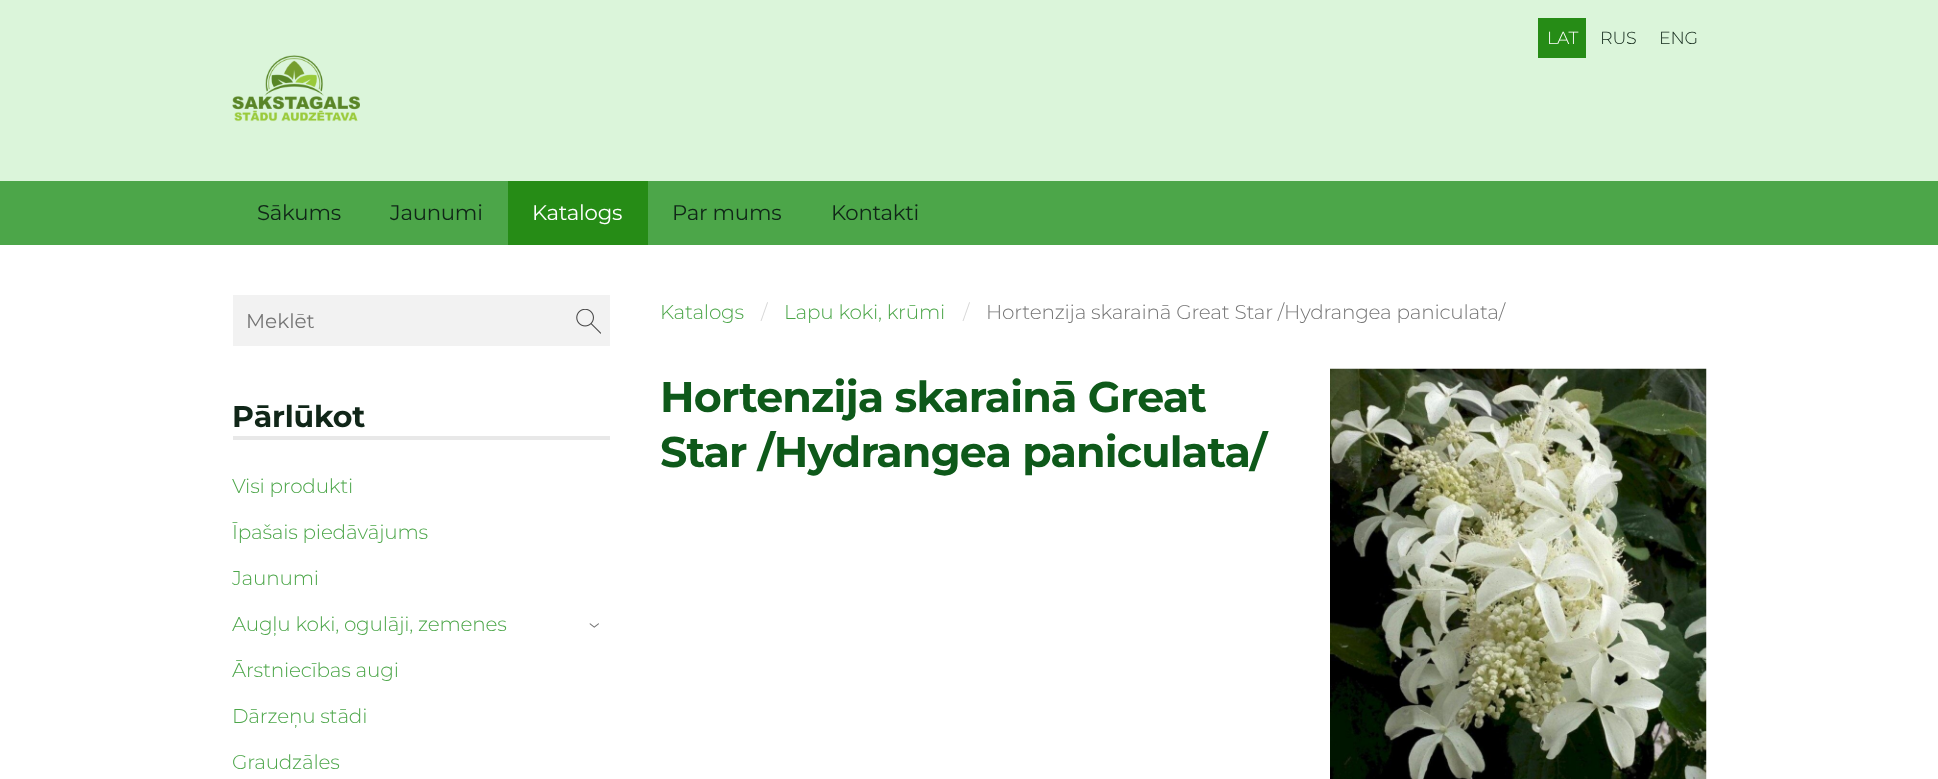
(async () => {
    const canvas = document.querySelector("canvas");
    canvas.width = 1938;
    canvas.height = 779;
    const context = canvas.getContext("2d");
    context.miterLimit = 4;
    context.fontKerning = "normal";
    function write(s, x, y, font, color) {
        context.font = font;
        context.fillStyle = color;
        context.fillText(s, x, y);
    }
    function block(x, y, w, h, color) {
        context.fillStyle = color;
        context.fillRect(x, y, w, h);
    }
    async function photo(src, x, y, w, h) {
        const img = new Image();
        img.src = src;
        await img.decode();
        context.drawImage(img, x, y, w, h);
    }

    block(0, 0, 1938, 779, "rgb(255, 255, 255)");
    block(0, 0, 1938, 181, "rgb(219, 245, 218)");
    block(1538, 18, 48, 40, "rgb(38, 140, 22)");
    context.letterSpacing = "-0.2px";
    write("LAT", 1547, 44, "300 17.5px Montserrat", "rgb(255, 255, 255)");
    write("RUS", 1600, 44, "300 17.5px Montserrat", "rgb(16, 38, 24)");
    write("ENG", 1659, 44, "300 17.5px Montserrat", "rgb(16, 38, 24)");
    await photo("media/1.png", 232, 55, 128, 67);
    block(0, 181, 1938, 64, "rgb(76, 166, 73)");
    context.letterSpacing = "-0.25px";
    write("Sākums", 257, 220, "21.25px Montserrat", "rgb(16, 38, 24)");
    write("Jaunumi", 390, 220, "21.25px Montserrat", "rgb(16, 38, 24)");
    block(508, 181, 140, 64, "rgb(38, 140, 22)");
    write("Katalogs", 532, 220, "21.25px Montserrat", "rgb(255, 255, 255)");
    write("Par mums", 672, 220, "21.25px Montserrat", "rgb(16, 38, 24)");
    write("Kontakti", 831, 220, "21.25px Montserrat", "rgb(16, 38, 24)");
    block(233, 295, 377, 51, "rgb(242, 242, 242)");
    context.letterSpacing = "0px";
    write("Meklēt", 246, 328, "20px Montserrat", "rgb(117, 117, 117)");
    await photo("media/2.png", 576, 309, 25, 25);
    block(233, 436, 377, 4, "rgb(232, 232, 232)");
    context.letterSpacing = "-0.2px";
    write("Pārlūkot", 232, 427, "bold 30px Montserrat", "rgb(16, 38, 24)");
    write("Visi produkti", 232, 493, "300 20px Montserrat", "rgb(76, 166, 73)");
    write("Īpašais piedāvājums", 232, 539, "300 20px Montserrat", "rgb(76, 166, 73)");
    write("Jaunumi", 232, 585, "300 20px Montserrat", "rgb(76, 166, 73)");
    write("Augļu koki, ogulāji, zemenes", 232, 631, "300 20px Montserrat", "rgb(76, 166, 73)");
    context.font = "300 24px Montserrat";
    context.fillStyle = "rgb(117, 117, 117)";
    context.save();
    context.translate(588, 622);
    context.rotate(90 * Math.PI / 180);
    context.fillText("›", 0, 0);
    context.restore();
    write("Ārstniecības augi", 232, 677, "300 20px Montserrat", "rgb(76, 166, 73)");
    write("Dārzeņu stādi", 232, 723, "300 20px Montserrat", "rgb(76, 166, 73)");
    write("Graudzāles", 232, 769, "300 20px Montserrat", "rgb(76, 166, 73)");
    write("Katalogs", 660, 319, "300 20px Montserrat", "rgb(76, 166, 73)");
    write("/", 761, 319, "300 20px Montserrat", "rgb(214, 214, 214)");
    write("Lapu koki, krūmi", 784, 319, "300 20px Montserrat", "rgb(76, 166, 73)");
    write("/", 963, 319, "300 20px Montserrat", "rgb(214, 214, 214)");
    write("Hortenzija skarainā Great Star /Hydrangea paniculata/", 986, 319, "300 20px Montserrat", "rgb(117, 117, 117)");
    context.letterSpacing = "-0.85px";
    write("Hortenzija skarainā Great", 660, 412, "bold 42.8px Montserrat", "rgb(14, 89, 26)");
    write("Star /Hydrangea paniculata/", 660, 467, "bold 42.8px Montserrat", "rgb(14, 89, 26)");
    await photo("media/3.png", 1330, 368, 377, 411);
})();
